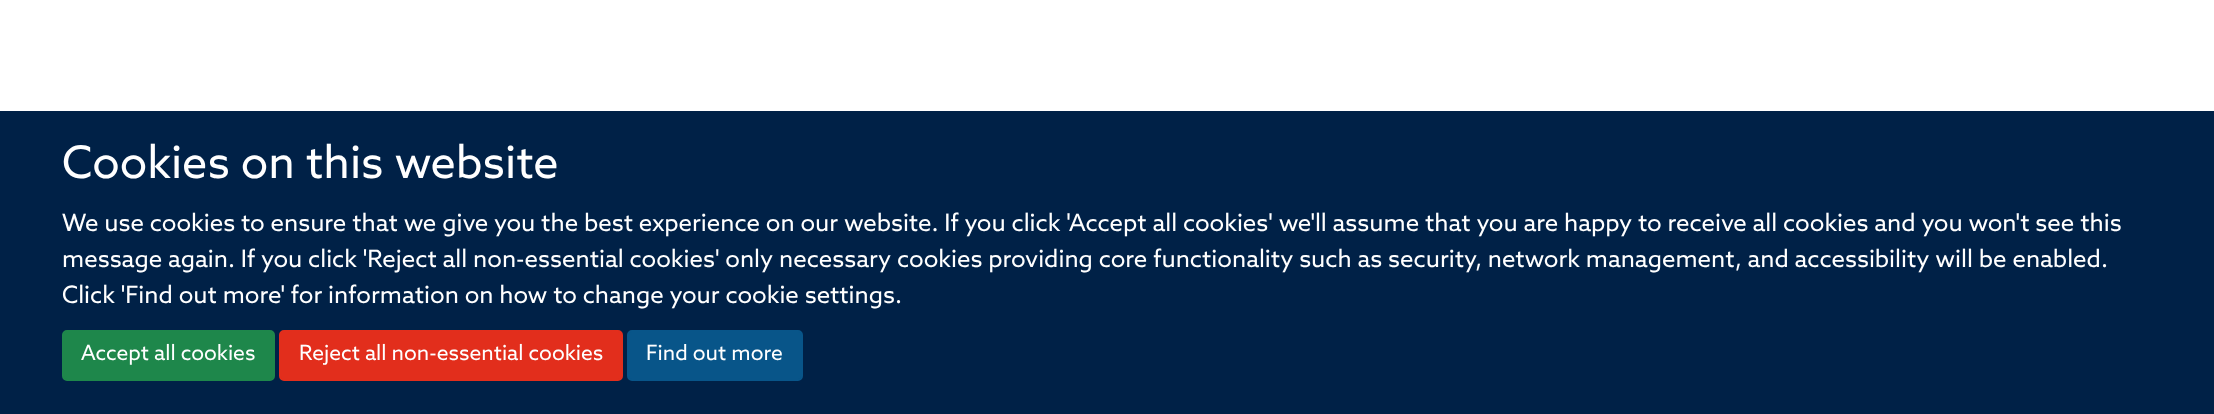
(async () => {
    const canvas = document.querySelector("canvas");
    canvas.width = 2214;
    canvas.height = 414;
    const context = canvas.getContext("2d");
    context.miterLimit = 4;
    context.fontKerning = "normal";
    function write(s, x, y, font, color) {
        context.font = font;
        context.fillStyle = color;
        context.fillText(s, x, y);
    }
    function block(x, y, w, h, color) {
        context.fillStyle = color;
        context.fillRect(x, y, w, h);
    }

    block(0, 0, 2214, 414, "rgb(255, 255, 255)");
    block(0, 111, 2214, 303, "rgb(0, 33, 71)");
    write("Cookies on this website", 62, 178, "45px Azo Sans", "rgb(255, 255, 255)");
    write("We use cookies to ensure that we give you the best experience on our website. If you click 'Accept all cookies' we'll assume that you are happy to receive all cookies and you won't see this", 62, 231, "24px Azo Sans", "rgb(255, 255, 255)");
    write("message again. If you click 'Reject all non-essential cookies' only necessary cookies providing core functionality such as security, network management, and accessibility will be enabled.", 62, 267, "24px Azo Sans", "rgb(255, 255, 255)");
    write("Click 'Find out more' for information on how to change your cookie settings.", 62, 303, "24px Azo Sans", "rgb(255, 255, 255)");
    context.fillStyle = "rgb(30, 135, 75)";
    context.beginPath();
    context.roundRect(63, 331, 211, 49, 4);
    context.fill();
    context.strokeStyle = "rgb(30, 135, 75)";
    context.lineWidth = 2;
    context.stroke();
    write("Accept all cookies", 81, 360, "21px Azo Sans", "rgb(255, 255, 255)");
    context.fillStyle = "rgb(226, 46, 28)";
    context.beginPath();
    context.roundRect(280, 331, 342, 49, 4);
    context.fill();
    context.strokeStyle = "rgb(226, 46, 28)";
    context.stroke();
    write("Reject all non-essential cookies", 299, 360, "21px Azo Sans", "rgb(255, 255, 255)");
    context.fillStyle = "rgb(8, 85, 137)";
    context.beginPath();
    context.roundRect(628, 331, 174, 49, 4);
    context.fill();
    context.strokeStyle = "rgb(8, 85, 137)";
    context.stroke();
    write("Find out more", 646, 360, "21px Azo Sans", "rgb(255, 255, 255)");
})();
